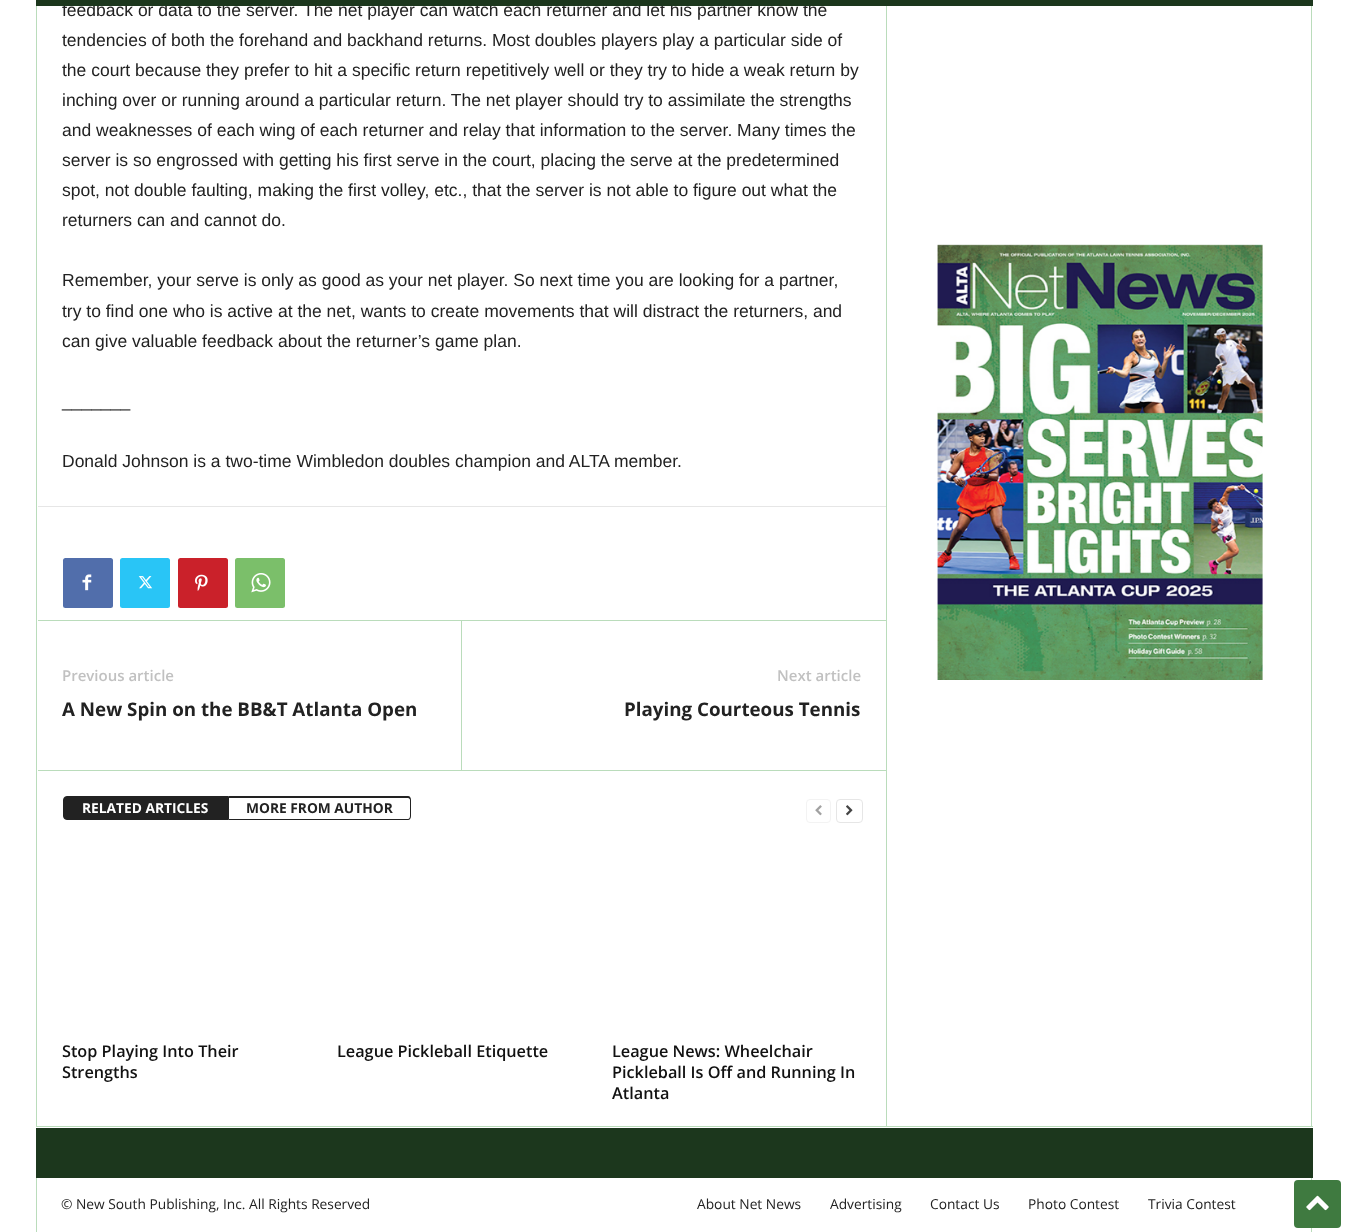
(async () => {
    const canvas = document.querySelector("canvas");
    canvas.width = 1347;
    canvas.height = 1232;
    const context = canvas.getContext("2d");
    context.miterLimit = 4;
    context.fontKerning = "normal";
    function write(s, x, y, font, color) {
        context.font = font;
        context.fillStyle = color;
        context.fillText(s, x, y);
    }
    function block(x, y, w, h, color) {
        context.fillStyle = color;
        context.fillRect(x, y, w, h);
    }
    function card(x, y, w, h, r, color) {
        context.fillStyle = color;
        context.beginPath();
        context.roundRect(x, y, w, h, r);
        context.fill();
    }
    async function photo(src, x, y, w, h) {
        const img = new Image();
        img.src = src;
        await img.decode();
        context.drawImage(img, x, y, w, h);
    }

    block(0, 0, 1347, 1232, "rgb(255, 255, 255)");
    block(36, 0, 1, 1126, "rgb(186, 220, 187)");
    write("feedback or data to the server. The net player can watch each returner and let his partner know the", 62, 16, "17.5px Liberation Sans", "rgb(34, 34, 34)");
    block(886, 0, 1, 1126, "rgb(186, 220, 187)");
    block(1311, 0, 1, 1126, "rgb(186, 220, 187)");
    block(36, 0, 1277, 6, "rgb(28, 55, 29)");
    block(36, 1126, 1277, 1, "rgb(186, 220, 187)");
    write("tendencies of both the forehand and backhand returns. Most doubles players play a particular side of", 62, 46, "17.5px Liberation Sans", "rgb(34, 34, 34)");
    write("the court because they prefer to hit a specific return repetitively well or they try to hide a weak return by", 62, 76, "17.5px Liberation Sans", "rgb(34, 34, 34)");
    write("inching over or running around a particular return. The net player should try to assimilate the strengths", 62, 106, "17.5px Liberation Sans", "rgb(34, 34, 34)");
    write("and weaknesses of each wing of each returner and relay that information to the server. Many times the", 62, 136, "17.5px Liberation Sans", "rgb(34, 34, 34)");
    write("server is so engrossed with getting his first serve in the court, placing the serve at the predetermined", 62, 166, "17.5px Liberation Sans", "rgb(34, 34, 34)");
    write("spot, not double faulting, making the first volley, etc., that the server is not able to figure out what the", 62, 196, "17.5px Liberation Sans", "rgb(34, 34, 34)");
    write("returners can and cannot do.", 62, 226, "17.5px Liberation Sans", "rgb(34, 34, 34)");
    write("Remember, your serve is only as good as your net player. So next time you are looking for a partner,", 62, 286, "17.5px Liberation Sans", "rgb(34, 34, 34)");
    write("try to find one who is active at the net, wants to create movements that will distract the returners, and", 62, 317, "17.5px Liberation Sans", "rgb(34, 34, 34)");
    write("can give valuable feedback about the returner’s game plan.", 62, 347, "17.5px Liberation Sans", "rgb(34, 34, 34)");
    write("_______", 62, 407, "17.5px Liberation Sans", "rgb(34, 34, 34)");
    write("Donald Johnson is a two-time Wimbledon doubles champion and ALTA member.", 62, 467, "17.5px Liberation Sans", "rgb(34, 34, 34)");
    block(38, 506, 848, 1, "rgb(230, 230, 230)");
    card(63, 558, 50, 50, 2.5, "rgb(81, 110, 171)");
    await photo("media/1.png", 82, 574, 10, 17);
    card(120, 558, 50, 50, 2.5, "rgb(41, 197, 246)");
    await photo("media/2.png", 138, 576, 15, 13);
    card(178, 558, 50, 50, 2.5, "rgb(202, 33, 42)");
    await photo("media/3.png", 195, 574, 13, 17);
    card(235, 558, 50, 50, 2.5, "rgb(123, 191, 106)");
    await photo("media/4.png", 251, 573, 20, 20);
    block(38, 620, 848, 1, "rgb(186, 220, 187)");
    write("Previous article", 62, 681, "600 15px Open Sans", "rgb(193, 193, 193)");
    write("A New Spin on the BB&T Atlanta Open", 62, 716, "bold 18.75px Open Sans", "rgb(34, 34, 34)");
    block(461, 621, 1, 149, "rgb(186, 220, 187)");
    write("Next article", 777, 681, "600 15px Open Sans", "rgb(193, 193, 193)");
    write("Playing Courteous Tennis", 624, 716, "bold 18.75px Open Sans", "rgb(34, 34, 34)");
    block(38, 770, 848, 1, "rgb(186, 220, 187)");
    context.fillStyle = "rgb(34, 34, 34)";
    context.beginPath();
    context.roundRect(63.5, 796.5, 165, 23, [3.5, 0, 0, 3.5]);
    context.fill();
    context.strokeStyle = "rgb(34, 34, 34)";
    context.stroke();
    write("RELATED ARTICLES", 82, 813, "bold 13.75px Open Sans", "rgb(255, 255, 255)");
    context.fillStyle = "rgb(34, 34, 34)";
    context.beginPath();
    context.moveTo(229, 796);
    context.lineTo(408, 796);
    context.bezierCurveTo(410, 796, 411, 798, 411, 800);
    context.lineTo(411, 816);
    context.bezierCurveTo(411, 818, 410, 820, 408, 820);
    context.lineTo(229, 820);
    context.closePath();
    context.moveTo(229, 798);
    context.lineTo(408, 798);
    context.bezierCurveTo(409, 798, 410, 799, 410, 800);
    context.lineTo(410, 816);
    context.bezierCurveTo(410, 818, 409, 819, 408, 819);
    context.lineTo(229, 819);
    context.closePath();
    context.fill("evenodd");
    write("MORE FROM AUTHOR", 246, 813, "bold 13.75px Open Sans", "rgb(34, 34, 34)");
    context.beginPath();
    context.roundRect(806.5, 799.5, 24, 23, 3.5);
    context.strokeStyle = "rgb(243, 243, 243)";
    context.stroke();
    await photo("media/5.png", 815, 805, 7, 11);
    context.beginPath();
    context.roundRect(836.5, 799.5, 26, 23, 3.5);
    context.strokeStyle = "rgb(230, 230, 230)";
    context.stroke();
    await photo("media/6.png", 846, 805, 7, 11);
    write("Stop Playing Into Their", 62, 1057, "600 16.25px Open Sans", "rgb(17, 17, 17)");
    write("Strengths", 62, 1078, "600 16.25px Open Sans", "rgb(17, 17, 17)");
    write("League Pickleball Etiquette", 337, 1057, "600 16.25px Open Sans", "rgb(17, 17, 17)");
    write("League News: Wheelchair", 612, 1057, "600 16.25px Open Sans", "rgb(17, 17, 17)");
    write("Pickleball Is Off and Running In", 612, 1078, "600 16.25px Open Sans", "rgb(17, 17, 17)");
    write("Atlanta", 612, 1099, "600 16.25px Open Sans", "rgb(17, 17, 17)");
    await photo("media/7.png", 937, 244, 326, 436);
    block(36, 1128, 1277, 50, "rgb(28, 55, 29)");
    block(36, 1178, 1, 54, "rgb(186, 220, 187)");
    write("© New South Publishing, Inc. All Rights Reserved", 61, 1209, "13.75px Open Sans", "rgb(34, 34, 34)");
    write("About Net News", 697, 1209, "13.75px Open Sans", "rgb(34, 34, 34)");
    write("Advertising", 830, 1209, "13.75px Open Sans", "rgb(34, 34, 34)");
    write("Contact Us", 930, 1209, "13.75px Open Sans", "rgb(34, 34, 34)");
    write("Photo Contest", 1028, 1209, "13.75px Open Sans", "rgb(34, 34, 34)");
    write("Trivia Contest", 1148, 1209, "13.75px Open Sans", "rgb(34, 34, 34)");
    block(1311, 1178, 1, 54, "rgb(186, 220, 187)");
    card(1294, 1180, 47, 48, 4, "rgb(63, 122, 64)");
    await photo("media/8.png", 1306, 1195, 23, 16);
})();
